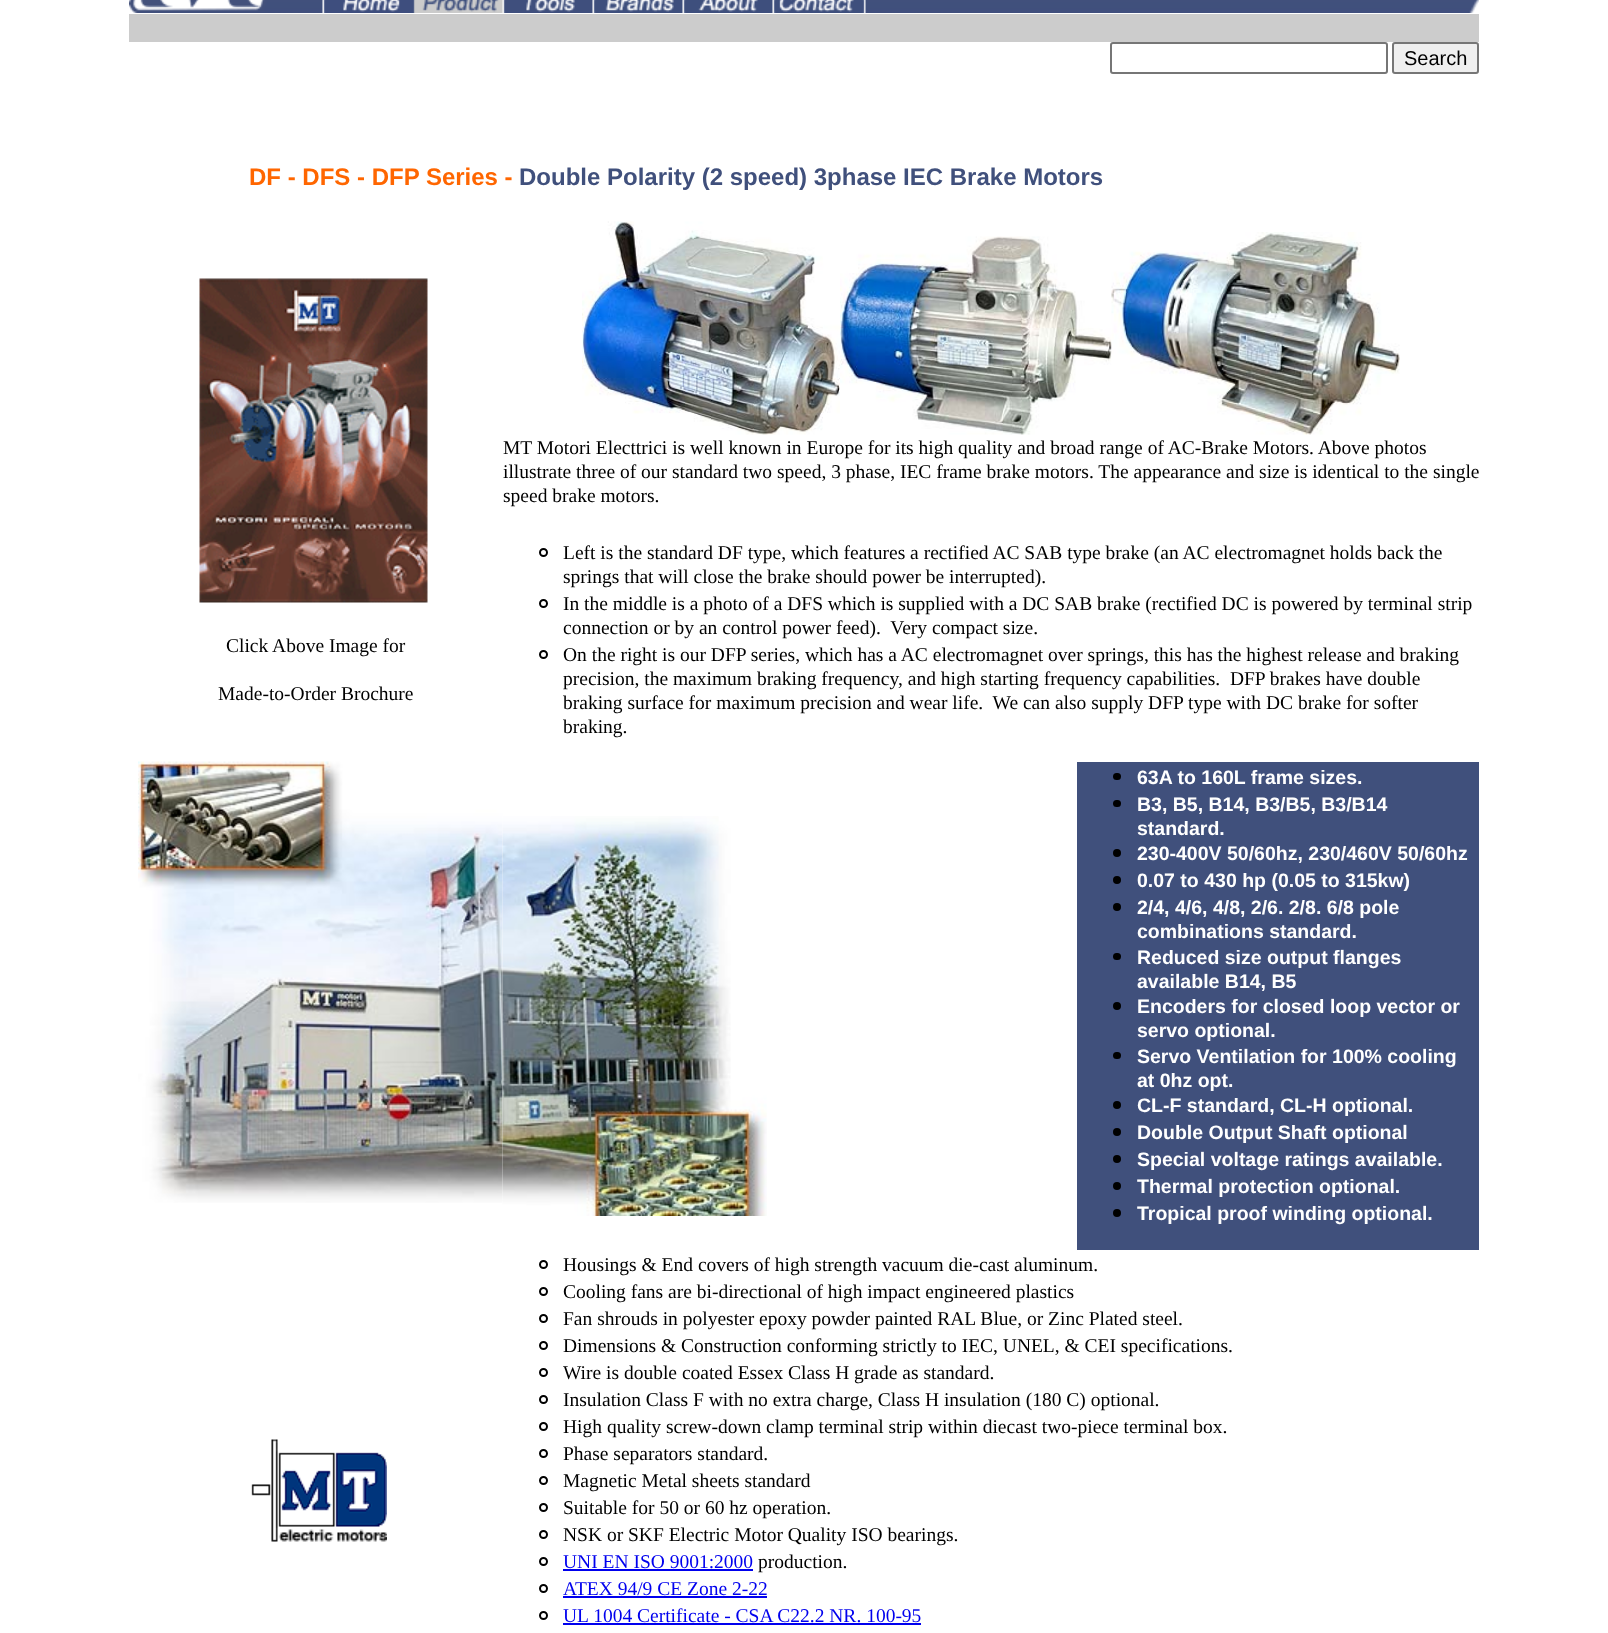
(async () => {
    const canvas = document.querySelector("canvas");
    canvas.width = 1608;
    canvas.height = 1633;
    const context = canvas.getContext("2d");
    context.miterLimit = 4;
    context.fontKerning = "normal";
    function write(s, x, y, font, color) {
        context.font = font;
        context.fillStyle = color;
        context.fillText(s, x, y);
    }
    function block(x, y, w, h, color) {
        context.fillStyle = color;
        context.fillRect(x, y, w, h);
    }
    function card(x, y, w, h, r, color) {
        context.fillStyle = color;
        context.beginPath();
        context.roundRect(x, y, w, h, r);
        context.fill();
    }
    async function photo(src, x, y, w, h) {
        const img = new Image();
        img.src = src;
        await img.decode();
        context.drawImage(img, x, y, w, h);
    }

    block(0, 0, 1608, 1633, "rgb(255, 255, 255)");
    await photo("media/1.png", 129, 0, 1350, 13);
    block(129, 14, 1350, 28, "rgb(204, 204, 204)");
    context.beginPath();
    context.roundRect(1111, 43, 276, 30, 2);
    context.strokeStyle = "rgb(118, 118, 118)";
    context.lineWidth = 2;
    context.stroke();
    context.fillStyle = "rgb(239, 239, 239)";
    context.beginPath();
    context.roundRect(1393, 43, 85, 30, 2);
    context.fill();
    context.stroke();
    write("Search", 1404, 65, "20px Liberation Sans", "rgb(0, 0, 0)");
    write("DF - DFS - DFP Series -", 249, 185, "bold 24px Liberation Sans", "rgb(255, 102, 0)");
    write("Double Polarity (2 speed) 3phase IEC Brake Motors", 519, 185, "bold 24px Liberation Sans", "rgb(64, 80, 124)");
    await photo("media/2.png", 582, 221, 258, 214);
    await photo("media/3.png", 840, 236, 272, 199);
    await photo("media/4.png", 1111, 232, 289, 203);
    await photo("media/5.png", 199, 278, 229, 325);
    write("Click Above Image for", 226, 652, "19.5px Liberation Serif", "rgb(0, 0, 0)");
    write("Made-to-Order Brochure", 218, 700, "19.5px Liberation Serif", "rgb(0, 0, 0)");
    write("MT Motori Electtrici is well known in Europe for its high quality and broad range of AC-Brake Motors. Above photos", 503, 454, "19.5px Liberation Serif", "rgb(0, 0, 0)");
    write("illustrate three of our standard two speed, 3 phase, IEC frame brake motors. The appearance and size is identical to the single", 503, 478, "19.5px Liberation Serif", "rgb(0, 0, 0)");
    write("speed brake motors.", 503, 502, "19.5px Liberation Serif", "rgb(0, 0, 0)");
    context.beginPath();
    context.arc(543.5, 552.5, 3.5, 0, Math.PI * 2);
    context.strokeStyle = "rgb(0, 0, 0)";
    context.stroke();
    write("Left is the standard DF type, which features a rectified AC SAB type brake (an AC electromagnet holds back the", 563, 559, "19.5px Liberation Serif", "rgb(0, 0, 0)");
    write("springs that will close the brake should power be interrupted).", 563, 583, "19.5px Liberation Serif", "rgb(0, 0, 0)");
    context.beginPath();
    context.arc(543.5, 603.5, 3.5, 0, Math.PI * 2);
    context.stroke();
    write("In the middle is a photo of a DFS which is supplied with a DC SAB brake (rectified DC is powered by terminal strip", 563, 610, "19.5px Liberation Serif", "rgb(0, 0, 0)");
    write("connection or by an control power feed).  Very compact size.", 563, 634, "19.5px Liberation Serif", "rgb(0, 0, 0)");
    context.beginPath();
    context.arc(543.5, 654.5, 3.5, 0, Math.PI * 2);
    context.stroke();
    write("On the right is our DFP series, which has a AC electromagnet over springs, this has the highest release and braking", 563, 661, "19.5px Liberation Serif", "rgb(0, 0, 0)");
    write("precision, the maximum braking frequency, and high starting frequency capabilities.  DFP brakes have double", 563, 685, "19.5px Liberation Serif", "rgb(0, 0, 0)");
    write("braking surface for maximum precision and wear life.  We can also supply DFP type with DC brake for softer", 563, 709, "19.5px Liberation Serif", "rgb(0, 0, 0)");
    write("braking.", 563, 733, "19.5px Liberation Serif", "rgb(0, 0, 0)");
    await photo("media/6.png", 138, 761, 365, 442);
    await photo("media/7.png", 502, 816, 265, 400);
    block(1077, 762, 402, 488, "rgb(64, 80, 124)");
    card(1113, 773, 8, 7, 3.5, "rgb(0, 0, 0)");
    write("63A to 160L frame sizes.", 1137, 784, "bold 19.5px Liberation Sans", "rgb(255, 255, 255)");
    card(1113, 800, 8, 7, 3.5, "rgb(0, 0, 0)");
    write("B3, B5, B14, B3/B5, B3/B14", 1137, 811, "bold 19.5px Liberation Sans", "rgb(255, 255, 255)");
    write("standard.", 1137, 835, "bold 19.5px Liberation Sans", "rgb(255, 255, 255)");
    context.fillStyle = "rgb(0, 0, 0)";
    context.beginPath();
    context.arc(1117, 853, 4, 0, Math.PI * 2);
    context.fill();
    write("230-400V 50/60hz, 230/460V 50/60hz", 1137, 860, "bold 19.5px Liberation Sans", "rgb(255, 255, 255)");
    context.fillStyle = "rgb(0, 0, 0)";
    context.beginPath();
    context.arc(1117, 880, 4, 0, Math.PI * 2);
    context.fill();
    write("0.07 to 430 hp (0.05 to 315kw)", 1137, 887, "bold 19.5px Liberation Sans", "rgb(255, 255, 255)");
    context.fillStyle = "rgb(0, 0, 0)";
    context.beginPath();
    context.arc(1117, 907, 4, 0, Math.PI * 2);
    context.fill();
    write("2/4, 4/6, 4/8, 2/6. 2/8. 6/8 pole", 1137, 914, "bold 19.5px Liberation Sans", "rgb(255, 255, 255)");
    write("combinations standard.", 1137, 938, "bold 19.5px Liberation Sans", "rgb(255, 255, 255)");
    card(1113, 953, 8, 7, 3.5, "rgb(0, 0, 0)");
    write("Reduced size output flanges", 1137, 964, "bold 19.5px Liberation Sans", "rgb(255, 255, 255)");
    write("available B14, B5", 1137, 988, "bold 19.5px Liberation Sans", "rgb(255, 255, 255)");
    context.fillStyle = "rgb(0, 0, 0)";
    context.beginPath();
    context.arc(1117, 1006, 4, 0, Math.PI * 2);
    context.fill();
    write("Encoders for closed loop vector or", 1137, 1013, "bold 19.5px Liberation Sans", "rgb(255, 255, 255)");
    write("servo optional.", 1137, 1037, "bold 19.5px Liberation Sans", "rgb(255, 255, 255)");
    card(1113, 1052, 8, 7, 3.5, "rgb(0, 0, 0)");
    write("Servo Ventilation for 100% cooling", 1137, 1063, "bold 19.5px Liberation Sans", "rgb(255, 255, 255)");
    write("at 0hz opt.", 1137, 1087, "bold 19.5px Liberation Sans", "rgb(255, 255, 255)");
    context.fillStyle = "rgb(0, 0, 0)";
    context.beginPath();
    context.arc(1117, 1105, 4, 0, Math.PI * 2);
    context.fill();
    write("CL-F standard, CL-H optional.", 1137, 1112, "bold 19.5px Liberation Sans", "rgb(255, 255, 255)");
    context.fillStyle = "rgb(0, 0, 0)";
    context.beginPath();
    context.arc(1117, 1132, 4, 0, Math.PI * 2);
    context.fill();
    write("Double Output Shaft optional", 1137, 1139, "bold 19.5px Liberation Sans", "rgb(255, 255, 255)");
    context.fillStyle = "rgb(0, 0, 0)";
    context.beginPath();
    context.arc(1117, 1159, 4, 0, Math.PI * 2);
    context.fill();
    write("Special voltage ratings available.", 1137, 1166, "bold 19.5px Liberation Sans", "rgb(255, 255, 255)");
    context.fillStyle = "rgb(0, 0, 0)";
    context.beginPath();
    context.arc(1117, 1186, 4, 0, Math.PI * 2);
    context.fill();
    write("Thermal protection optional.", 1137, 1193, "bold 19.5px Liberation Sans", "rgb(255, 255, 255)");
    context.fillStyle = "rgb(0, 0, 0)";
    context.beginPath();
    context.arc(1117, 1213, 4, 0, Math.PI * 2);
    context.fill();
    write("Tropical proof winding optional.", 1137, 1220, "bold 19.5px Liberation Sans", "rgb(255, 255, 255)");
    await photo("media/8.png", 251, 1439, 136, 103);
    context.beginPath();
    context.arc(543.5, 1264.5, 3.5, 0, Math.PI * 2);
    context.stroke();
    write("Housings & End covers of high strength vacuum die-cast aluminum.", 563, 1271, "19.5px Liberation Serif", "rgb(0, 0, 0)");
    context.beginPath();
    context.arc(543.5, 1291.5, 3.5, 0, Math.PI * 2);
    context.stroke();
    write("Cooling fans are bi-directional of high impact engineered plastics", 563, 1298, "19.5px Liberation Serif", "rgb(0, 0, 0)");
    context.beginPath();
    context.arc(543.5, 1318.5, 3.5, 0, Math.PI * 2);
    context.stroke();
    write("Fan shrouds in polyester epoxy powder painted RAL Blue, or Zinc Plated steel.", 563, 1325, "19.5px Liberation Serif", "rgb(0, 0, 0)");
    context.beginPath();
    context.arc(543.5, 1345.5, 3.5, 0, Math.PI * 2);
    context.stroke();
    write("Dimensions & Construction conforming strictly to IEC, UNEL, & CEI specifications.", 563, 1352, "19.5px Liberation Serif", "rgb(0, 0, 0)");
    context.beginPath();
    context.arc(543.5, 1372.5, 3.5, 0, Math.PI * 2);
    context.stroke();
    write("Wire is double coated Essex Class H grade as standard.", 563, 1379, "19.5px Liberation Serif", "rgb(0, 0, 0)");
    context.beginPath();
    context.arc(543.5, 1399.5, 3.5, 0, Math.PI * 2);
    context.stroke();
    write("Insulation Class F with no extra charge, Class H insulation (180 C) optional.", 563, 1406, "19.5px Liberation Serif", "rgb(0, 0, 0)");
    context.beginPath();
    context.arc(543.5, 1426.5, 3.5, 0, Math.PI * 2);
    context.stroke();
    write("High quality screw-down clamp terminal strip within diecast two-piece terminal box.", 563, 1433, "19.5px Liberation Serif", "rgb(0, 0, 0)");
    context.beginPath();
    context.arc(543.5, 1453.5, 3.5, 0, Math.PI * 2);
    context.stroke();
    write("Phase separators standard.", 563, 1460, "19.5px Liberation Serif", "rgb(0, 0, 0)");
    context.beginPath();
    context.arc(543.5, 1480.5, 3.5, 0, Math.PI * 2);
    context.stroke();
    write("Magnetic Metal sheets standard", 563, 1487, "19.5px Liberation Serif", "rgb(0, 0, 0)");
    context.beginPath();
    context.arc(543.5, 1507.5, 3.5, 0, Math.PI * 2);
    context.stroke();
    write("Suitable for 50 or 60 hz operation.", 563, 1514, "19.5px Liberation Serif", "rgb(0, 0, 0)");
    context.beginPath();
    context.arc(543.5, 1534.5, 3.5, 0, Math.PI * 2);
    context.stroke();
    write("NSK or SKF Electric Motor Quality ISO bearings.", 563, 1541, "19.5px Liberation Serif", "rgb(0, 0, 0)");
    context.beginPath();
    context.arc(543.5, 1561.5, 3.5, 0, Math.PI * 2);
    context.stroke();
    write("UNI EN ISO 9001:2000", 563, 1568, "19.5px Liberation Serif", "rgb(0, 0, 238)");
    block(563, 1569, 190, 2, "rgb(0, 0, 238)");
    write("production.", 758, 1568, "19.5px Liberation Serif", "rgb(0, 0, 0)");
    context.beginPath();
    context.arc(543.5, 1588.5, 3.5, 0, Math.PI * 2);
    context.stroke();
    write("ATEX 94/9 CE Zone 2-22", 563, 1595, "19.5px Liberation Serif", "rgb(0, 0, 238)");
    block(563, 1596, 204, 2, "rgb(0, 0, 238)");
    context.beginPath();
    context.arc(543.5, 1615.5, 3.5, 0, Math.PI * 2);
    context.stroke();
    write("UL 1004 Certificate - CSA C22.2 NR. 100-95", 563, 1622, "19.5px Liberation Serif", "rgb(0, 0, 238)");
    block(563, 1623, 358, 2, "rgb(0, 0, 238)");
})();
